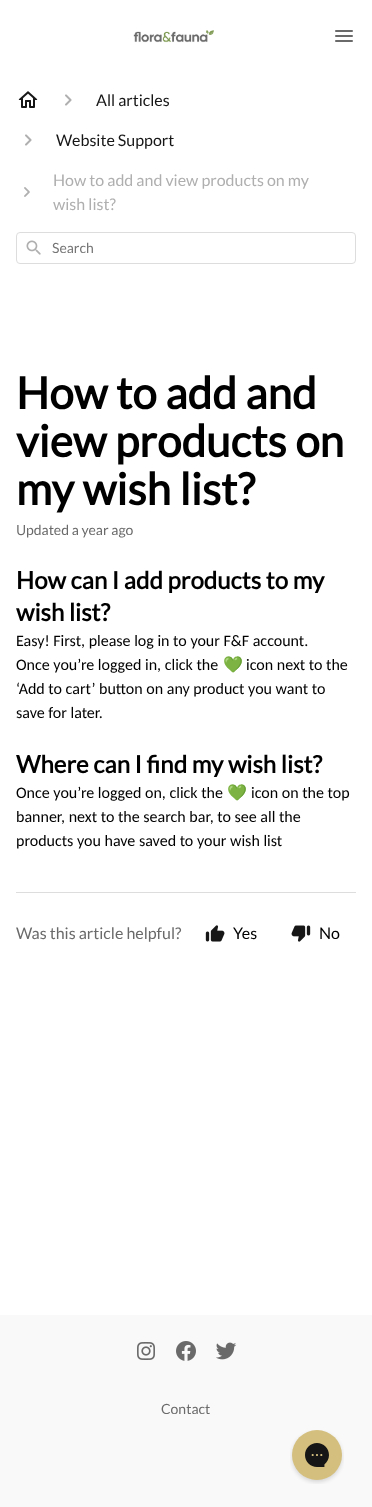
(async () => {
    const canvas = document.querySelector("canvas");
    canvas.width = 372;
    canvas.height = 1507;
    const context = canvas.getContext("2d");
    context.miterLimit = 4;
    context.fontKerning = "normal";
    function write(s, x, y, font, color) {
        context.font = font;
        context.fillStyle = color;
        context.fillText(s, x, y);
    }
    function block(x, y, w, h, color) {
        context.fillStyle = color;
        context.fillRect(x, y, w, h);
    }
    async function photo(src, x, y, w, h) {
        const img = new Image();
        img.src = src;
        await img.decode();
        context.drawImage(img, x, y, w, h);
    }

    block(0, 0, 372, 1507, "rgb(255, 255, 255)");
    await photo("media/1.png", 133, 30, 81, 13);
    await photo("media/2.png", 335, 30, 18, 12);
    await photo("media/3.png", 18, 91, 20, 17);
    await photo("media/4.png", 65, 94, 7, 12);
    write("All articles", 96, 106, "16px Lato", "rgb(22, 22, 22)");
    await photo("media/4.png", 25, 134, 7, 12);
    write("Website Support", 56, 146, "16px Lato", "rgb(22, 22, 22)");
    await photo("media/5.png", 24, 187, 6, 10);
    write("How to add and view products on my", 53, 186, "16px Lato", "rgb(175, 175, 175)");
    write("wish list?", 53, 210, "16px Lato", "rgb(175, 175, 175)");
    context.beginPath();
    context.roundRect(16.5, 232.5, 339, 31, 3.5);
    context.strokeStyle = "rgb(221, 221, 221)";
    context.stroke();
    await photo("media/6.png", 26, 240, 15, 15);
    write("Search", 52, 253, "14px Lato", "rgb(117, 117, 117)");
    write("How to add and", 16, 409, "bold 44px Lato", "rgb(0, 0, 0)");
    write("view products on", 16, 457, "bold 44px Lato", "rgb(0, 0, 0)");
    write("my wish list?", 16, 505, "bold 44px Lato", "rgb(0, 0, 0)");
    write("U", 16, 535, "14px Noto Sans", "rgb(106, 106, 106)");
    write("pdated a year ago", 26, 535, "14px Lato", "rgb(106, 106, 106)");
    write("How can I add products to my", 16, 589, "bold 24px Lato", "rgb(0, 0, 0)");
    write("wish list?", 16, 621, "bold 24px Lato", "rgb(0, 0, 0)");
    write("Easy! First, please log in to your F&F account.", 16, 646, "16px Carlito", "rgb(0, 0, 0)");
    write("Once you’re logged in, click the", 16, 670, "16px Carlito", "rgb(0, 0, 0)");
    write("💚", 223, 670, "16px Noto Color Emoji", "rgb(0, 0, 0)");
    write("icon next to the", 246, 670, "16px Carlito", "rgb(0, 0, 0)");
    write("‘Add to cart’ button on any product you want to", 16, 694, "16px Carlito", "rgb(0, 0, 0)");
    write("save for later.", 16, 718, "16px Carlito", "rgb(0, 0, 0)");
    write("Where can I find my wish list?", 16, 773, "bold 24px Lato", "rgb(0, 0, 0)");
    write("Once you’re logged on, click the", 16, 798, "16px Carlito", "rgb(0, 0, 0)");
    write("💚", 227, 798, "16px Noto Color Emoji", "rgb(0, 0, 0)");
    write("icon on the top", 251, 798, "16px Carlito", "rgb(0, 0, 0)");
    write("banner, next to the search bar, to see all the", 16, 822, "16px Carlito", "rgb(0, 0, 0)");
    write("products you have saved to your wish list", 16, 846, "16px Carlito", "rgb(0, 0, 0)");
    block(16, 892, 340, 1, "rgb(221, 221, 221)");
    write("Was this article helpful?", 16, 939, "16px Lato", "rgb(106, 106, 106)");
    await photo("media/7.png", 205, 925, 20, 17);
    write("Yes", 233, 939, "16px Lato", "rgb(0, 0, 0)");
    await photo("media/8.png", 291, 925, 20, 17);
    write("No", 319, 939, "16px Lato", "rgb(0, 0, 0)");
    block(0, 1315, 372, 192, "rgb(249, 249, 249)");
    await photo("media/9.png", 137, 1342, 18, 18);
    await photo("media/10.png", 176, 1341, 20, 20);
    await photo("media/11.png", 216, 1342, 21, 18);
    write("Contact", 161, 1414, "14px Lato", "rgb(106, 106, 106)");
    await photo("media/12.png", 290, 1430, 54, 54);
})();
